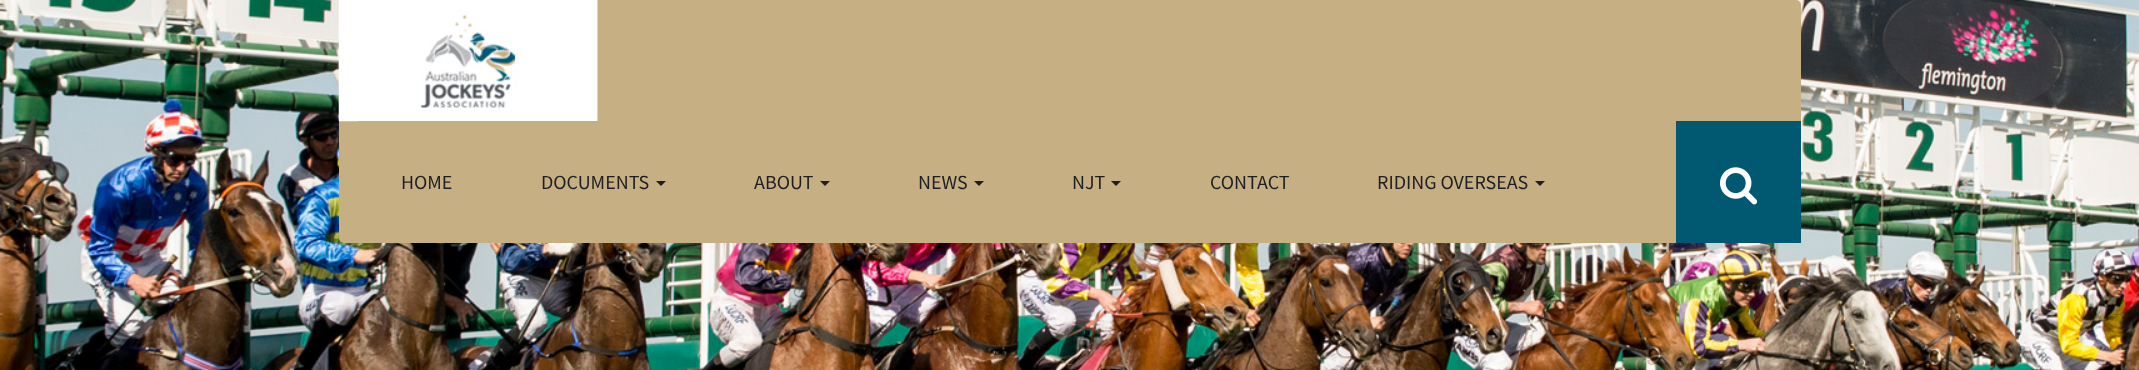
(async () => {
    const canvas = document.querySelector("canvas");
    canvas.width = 2139;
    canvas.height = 370;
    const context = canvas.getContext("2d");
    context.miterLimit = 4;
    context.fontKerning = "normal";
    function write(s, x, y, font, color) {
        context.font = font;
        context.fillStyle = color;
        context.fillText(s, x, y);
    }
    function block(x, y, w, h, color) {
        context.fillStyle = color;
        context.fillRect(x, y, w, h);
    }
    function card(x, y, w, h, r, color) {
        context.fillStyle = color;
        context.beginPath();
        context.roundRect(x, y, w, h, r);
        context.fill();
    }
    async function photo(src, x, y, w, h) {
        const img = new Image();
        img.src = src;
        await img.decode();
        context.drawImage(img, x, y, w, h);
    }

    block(0, 0, 2139, 370, "rgb(255, 255, 255)");
    await photo("media/1.png", 0, 0, 2139, 370);
    card(339, 0, 1462, 243, 5, "rgb(198, 175, 131)");
    await photo("media/2.png", 338, 0, 260, 122);
    block(358, 121, 240, 1, "rgb(198, 175, 131)");
    write("HOME", 401, 189, "20px Source Sans Pro", "rgb(30, 31, 35)");
    write("DOCUMENTS", 541, 189, "20px Source Sans Pro", "rgb(30, 31, 35)");
    context.beginPath();
    context.moveTo(656, 181);
    context.lineTo(666, 181);
    context.lineTo(661, 186);
    context.closePath();
    context.fill();
    write("ABOUT", 754, 189, "20px Source Sans Pro", "rgb(30, 31, 35)");
    context.beginPath();
    context.moveTo(820, 181);
    context.lineTo(830, 181);
    context.lineTo(825, 186);
    context.closePath();
    context.fill();
    write("NEWS", 918, 189, "20px Source Sans Pro", "rgb(30, 31, 35)");
    context.beginPath();
    context.moveTo(974, 181);
    context.lineTo(984, 181);
    context.lineTo(979, 186);
    context.closePath();
    context.fill();
    write("NJT", 1072, 189, "20px Source Sans Pro", "rgb(30, 31, 35)");
    context.beginPath();
    context.moveTo(1111, 181);
    context.lineTo(1121, 181);
    context.lineTo(1116, 186);
    context.closePath();
    context.fill();
    write("CONTACT", 1210, 189, "20px Source Sans Pro", "rgb(30, 31, 35)");
    write("RIDING OVERSEAS", 1377, 189, "20px Source Sans Pro", "rgb(30, 31, 35)");
    context.beginPath();
    context.moveTo(1535, 181);
    context.lineTo(1545, 181);
    context.lineTo(1540, 186);
    context.closePath();
    context.fill();
    block(1676, 121, 125, 122, "rgb(0, 88, 113)");
    await photo("media/3.png", 1720, 167, 38, 38);
})();
